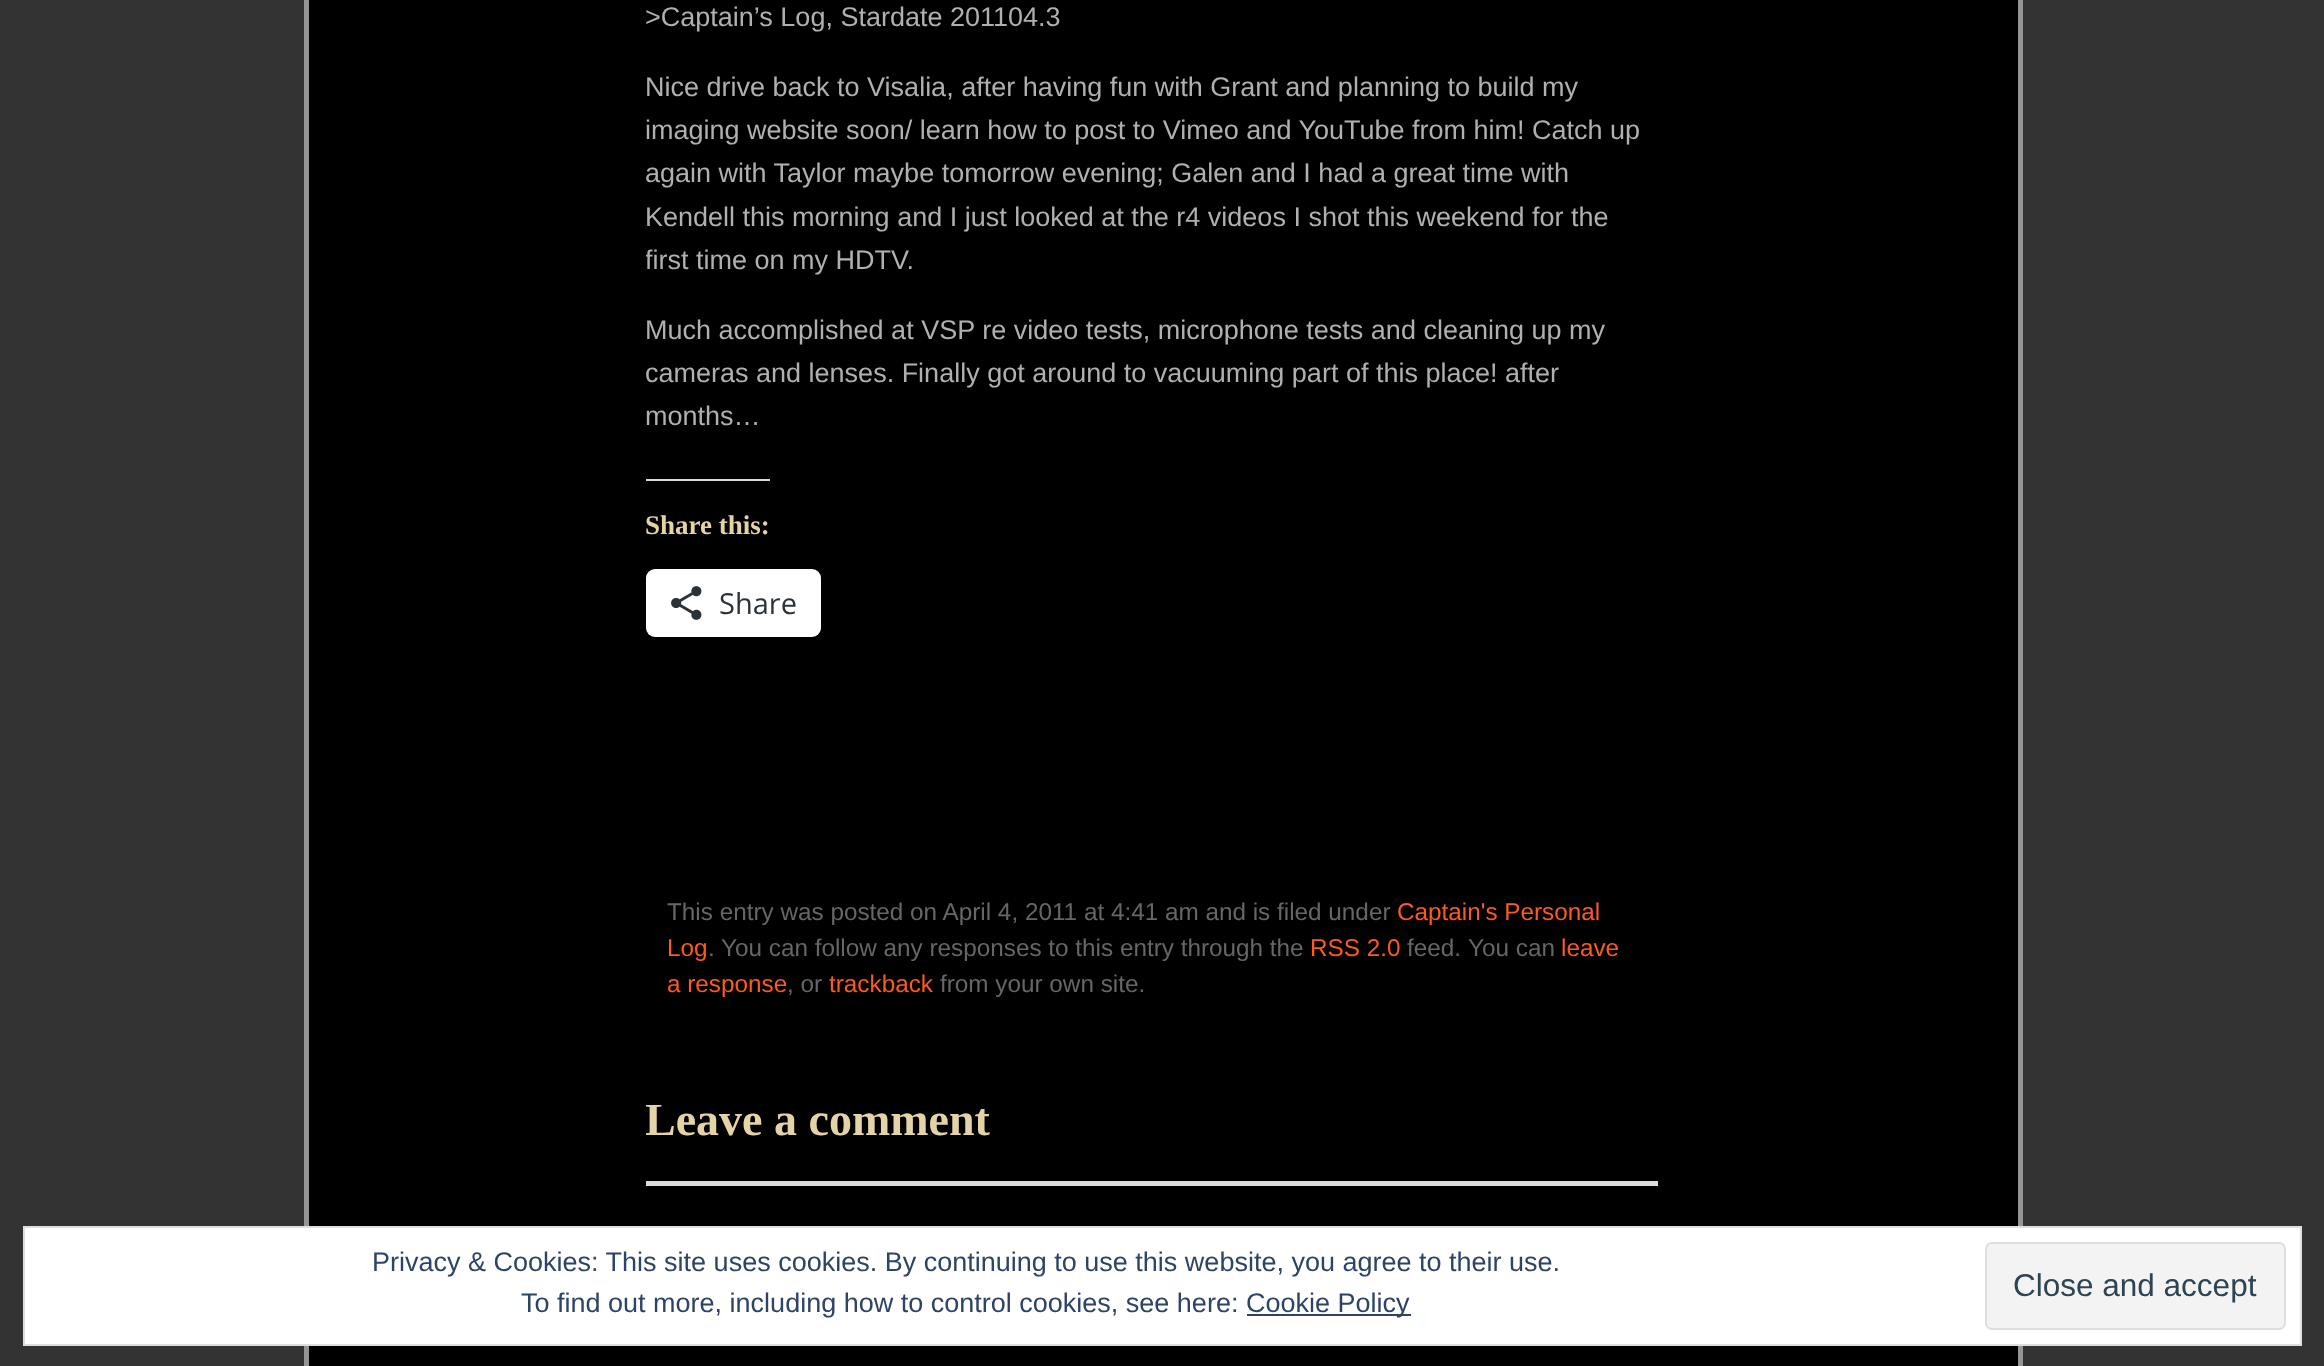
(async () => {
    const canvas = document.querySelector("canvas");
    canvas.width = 2324;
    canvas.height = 1366;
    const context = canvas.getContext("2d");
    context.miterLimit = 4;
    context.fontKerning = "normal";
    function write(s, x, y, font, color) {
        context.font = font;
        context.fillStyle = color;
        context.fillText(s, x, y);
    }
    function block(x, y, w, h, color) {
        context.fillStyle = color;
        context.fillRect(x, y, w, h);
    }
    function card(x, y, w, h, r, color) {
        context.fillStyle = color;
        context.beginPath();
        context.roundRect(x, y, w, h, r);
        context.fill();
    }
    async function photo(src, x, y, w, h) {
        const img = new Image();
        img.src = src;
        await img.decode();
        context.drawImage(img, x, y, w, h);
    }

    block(0, 0, 2324, 1366, "rgb(51, 51, 51)");
    context.fillStyle = "rgb(0, 0, 0)";
    context.beginPath();
    context.rect(306.5, -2.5, 1714, 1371);
    context.fill();
    context.strokeStyle = "rgb(149, 149, 150)";
    context.lineWidth = 5;
    context.stroke();
    write(">Captain’s Log, Stardate 201104.3", 645, 26, "27px Liberation Sans", "rgb(176, 176, 176)");
    write("Nice drive back to Visalia, after having fun with Grant and planning to build my", 645, 96, "27px Liberation Sans", "rgb(176, 176, 176)");
    write("imaging website soon/ learn how to post to Vimeo and YouTube from him! Catch up", 645, 139, "27px Liberation Sans", "rgb(176, 176, 176)");
    write("again with Taylor maybe tomorrow evening; Galen and I had a great time with", 645, 182, "27px Liberation Sans", "rgb(176, 176, 176)");
    write("Kendell this morning and I just looked at the r4 videos I shot this weekend for the", 645, 226, "27px Liberation Sans", "rgb(176, 176, 176)");
    context.save();
    context.beginPath();
    context.rect(646, 0, 1012, 1231);
    context.clip();
    write("first time on my HDTV.", 645, 269, "27px Liberation Sans", "rgb(176, 176, 176)");
    context.restore();
    write("Much accomplished at VSP re video tests, microphone tests and cleaning up my", 645, 339, "27px Liberation Sans", "rgb(176, 176, 176)");
    context.save();
    context.beginPath();
    context.rect(646, 0, 1012, 1231);
    context.clip();
    write("cameras and lenses. Finally got around to vacuuming part of this place! after", 645, 382, "27px Liberation Sans", "rgb(176, 176, 176)");
    context.restore();
    write("months…", 645, 425, "27px Liberation Sans", "rgb(176, 176, 176)");
    block(646, 479, 124, 2, "rgb(220, 220, 222)");
    write("Share this:", 645, 534, "bold 27px Liberation Serif", "rgb(228, 211, 166)");
    card(646, 569, 175, 68, 9, "rgb(255, 255, 255)");
    await photo("media/1.png", 671, 586, 31, 34);
    write("Share", 719, 614, "29px Open Sans", "rgb(44, 51, 56)");
    write("This entry was posted on April 4, 2011 at 4:41 am and is filed under", 667, 920, "24.3px Liberation Sans", "rgb(102, 102, 102)");
    write("Captain's Personal", 1397, 920, "24.3px Liberation Sans", "rgb(253, 90, 30)");
    write("Log", 667, 956, "24.3px Liberation Sans", "rgb(253, 90, 30)");
    write(".", 708, 956, "24.3px Liberation Sans", "rgb(102, 102, 102)");
    write("You can follow any responses to this entry through the", 721, 956, "24.3px Liberation Sans", "rgb(102, 102, 102)");
    write("RSS 2.0", 1310, 956, "24.3px Liberation Sans", "rgb(253, 90, 30)");
    write("feed.", 1407, 956, "24.3px Liberation Sans", "rgb(102, 102, 102)");
    write("You can", 1468, 956, "24.3px Liberation Sans", "rgb(102, 102, 102)");
    write("leave", 1561, 956, "24.3px Liberation Sans", "rgb(253, 90, 30)");
    write("a response", 667, 992, "24.3px Liberation Sans", "rgb(253, 90, 30)");
    write(", or", 787, 992, "24.3px Liberation Sans", "rgb(102, 102, 102)");
    write("trackback", 829, 992, "24.3px Liberation Sans", "rgb(253, 90, 30)");
    write("from your own site.", 940, 992, "24.3px Liberation Sans", "rgb(102, 102, 102)");
    context.save();
    context.beginPath();
    context.rect(646, 0, 1012, 1231);
    context.clip();
    write("Leave a comment", 645, 1135, "bold 46px Liberation Serif", "rgb(228, 211, 166)");
    context.restore();
    block(646, 1181, 1012, 5, "rgb(220, 220, 222)");
    context.fillStyle = "rgb(255, 255, 255)";
    context.beginPath();
    context.rect(24, 1227, 2277, 118);
    context.fill();
    context.strokeStyle = "rgb(222, 222, 222)";
    context.lineWidth = 2;
    context.stroke();
    write("Privacy & Cookies: This site uses cookies. By continuing to use this website, you agree to their use.", 372, 1271, "27px Liberation Sans", "rgb(46, 68, 103)");
    write("To find out more, including how to control cookies, see here:", 521, 1312, "27px Liberation Sans", "rgb(46, 68, 103)");
    block(1247, 1314, 164, 2, "rgb(46, 68, 103)");
    write("Cookie Policy", 1246, 1312, "27px Liberation Sans", "rgb(46, 68, 103)");
    context.fillStyle = "rgb(243, 243, 243)";
    context.beginPath();
    context.roundRect(1986, 1243, 299, 86, 6);
    context.fill();
    context.stroke();
    write("Close and accept", 2013, 1296, "31.5px Liberation Sans", "rgb(46, 68, 83)");
})();
